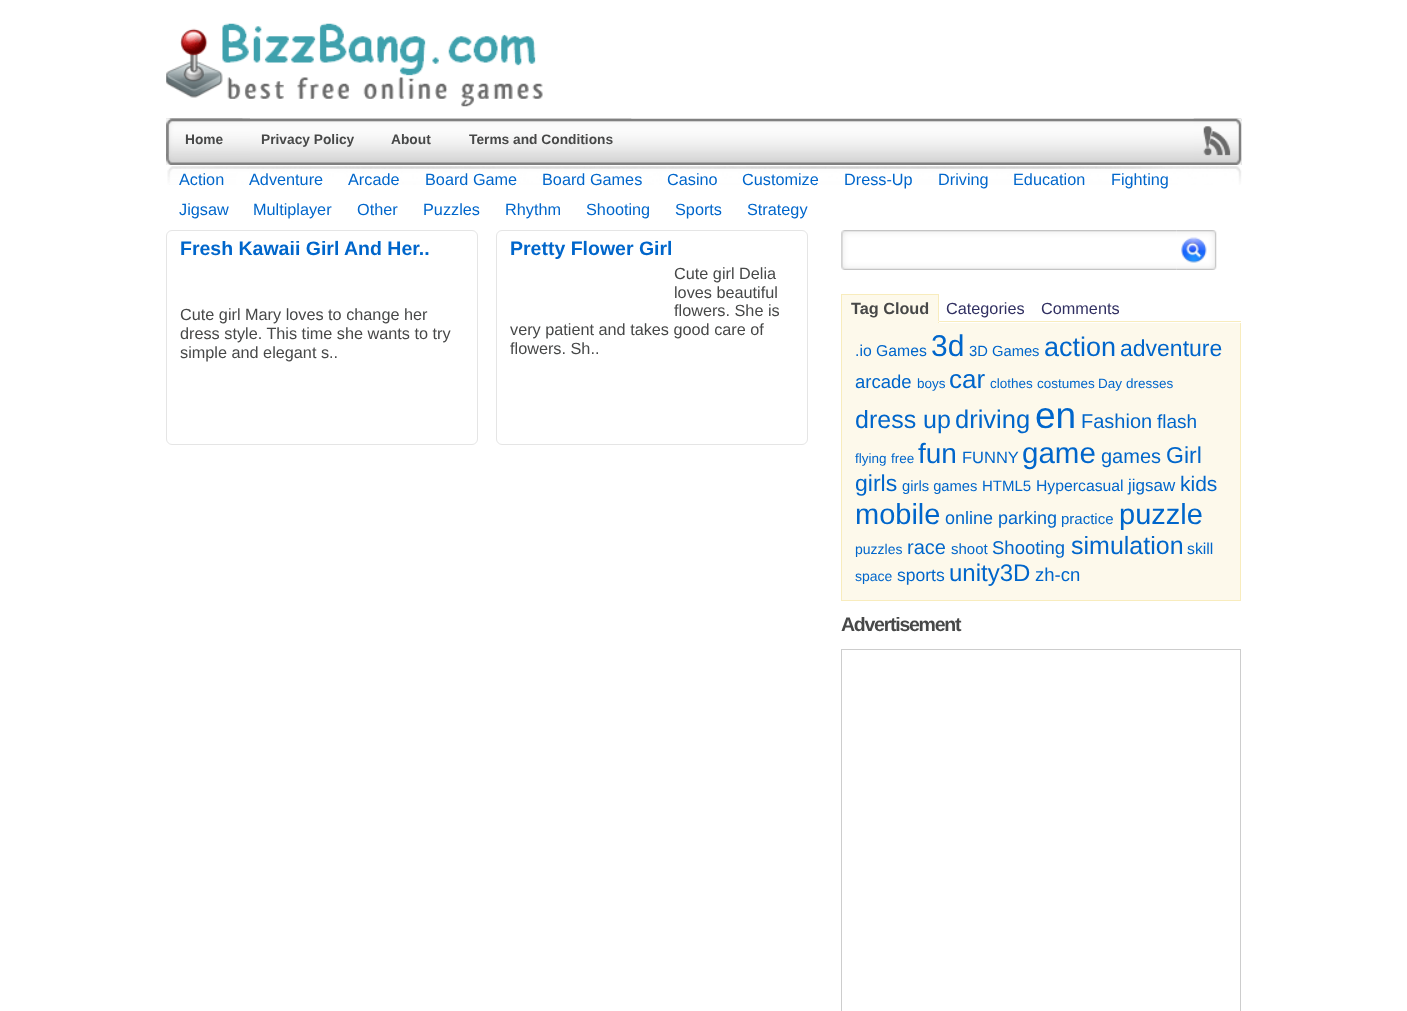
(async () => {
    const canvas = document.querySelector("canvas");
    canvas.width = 1407;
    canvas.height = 1011;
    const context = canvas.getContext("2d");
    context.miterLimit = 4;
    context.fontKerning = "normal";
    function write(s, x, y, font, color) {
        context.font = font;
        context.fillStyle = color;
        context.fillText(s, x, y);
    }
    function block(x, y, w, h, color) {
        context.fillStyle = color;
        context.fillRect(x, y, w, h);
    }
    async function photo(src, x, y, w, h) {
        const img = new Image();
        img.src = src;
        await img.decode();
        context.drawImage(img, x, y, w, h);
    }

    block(0, 0, 1407, 1011, "rgb(255, 255, 255)");
    await photo("media/1.png", 166, 23, 377, 84);
    await photo("media/2.png", 166, 118, 1076, 47);
    await photo("media/3.png", 166, 118, 84, 47);
    await photo("media/4.png", 166, 118, 77, 47);
    await photo("media/5.png", 166, 118, 77, 41);
    write("Home", 185, 144, "bold 13.75px Liberation Sans", "rgb(71, 72, 72)");
    await photo("media/6.png", 242, 118, 131, 1);
    write("Privacy Policy", 261, 144, "bold 13.75px Liberation Sans", "rgb(71, 72, 72)");
    await photo("media/7.png", 372, 118, 78, 1);
    write("About", 391, 144, "bold 13.75px Liberation Sans", "rgb(71, 72, 72)");
    await photo("media/8.png", 450, 118, 182, 1);
    write("Terms and Conditions", 469, 144, "bold 13.75px Liberation Sans", "rgb(71, 72, 72)");
    await photo("media/9.png", 1193, 118, 49, 47);
    await photo("media/10.png", 167, 166, 1075, 19);
    write("Action", 179, 185, "16.25px Liberation Sans", "rgb(0, 102, 203)");
    write("Adventure", 249, 185, "16.25px Liberation Sans", "rgb(0, 102, 203)");
    write("Arcade", 348, 185, "16.25px Liberation Sans", "rgb(0, 102, 203)");
    write("Board Game", 425, 185, "16.25px Liberation Sans", "rgb(0, 102, 203)");
    write("Board Games", 542, 185, "16.25px Liberation Sans", "rgb(0, 102, 203)");
    write("Casino", 667, 185, "16.25px Liberation Sans", "rgb(0, 102, 203)");
    write("Customize", 742, 185, "16.25px Liberation Sans", "rgb(0, 102, 203)");
    write("Dress-Up", 844, 185, "16.25px Liberation Sans", "rgb(0, 102, 203)");
    write("Driving", 938, 185, "16.25px Liberation Sans", "rgb(0, 102, 203)");
    write("Education", 1013, 185, "16.25px Liberation Sans", "rgb(0, 102, 203)");
    write("Fighting", 1111, 185, "16.25px Liberation Sans", "rgb(0, 102, 203)");
    write("Jigsaw", 179, 215, "16.25px Liberation Sans", "rgb(0, 102, 203)");
    write("Multiplayer", 253, 215, "16.25px Liberation Sans", "rgb(0, 102, 203)");
    write("Other", 357, 215, "16.25px Liberation Sans", "rgb(0, 102, 203)");
    write("Puzzles", 423, 215, "16.25px Liberation Sans", "rgb(0, 102, 203)");
    write("Rhythm", 505, 215, "16.25px Liberation Sans", "rgb(0, 102, 203)");
    write("Shooting", 586, 215, "16.25px Liberation Sans", "rgb(0, 102, 203)");
    write("Sports", 675, 215, "16.25px Liberation Sans", "rgb(0, 102, 203)");
    write("Strategy", 747, 215, "16.25px Liberation Sans", "rgb(0, 102, 203)");
    context.beginPath();
    context.roundRect(166.5, 230.5, 311, 214, 5.5);
    context.strokeStyle = "rgb(229, 229, 229)";
    context.stroke();
    write("Fresh Kawaii Girl And Her..", 180, 255, "bold 19.5px Liberation Sans", "rgb(0, 102, 203)");
    write("Cute girl Mary loves to change her", 180, 320, "16.25px Liberation Sans", "rgb(71, 72, 72)");
    write("dress style. This time she wants to try", 180, 339, "16.25px Liberation Sans", "rgb(71, 72, 72)");
    write("simple and elegant s..", 180, 358, "16.25px Liberation Sans", "rgb(71, 72, 72)");
    context.beginPath();
    context.roundRect(496.5, 230.5, 311, 214, 5.5);
    context.stroke();
    write("Pretty Flower Girl", 510, 255, "bold 19.5px Liberation Sans", "rgb(0, 102, 203)");
    write("Cute girl Delia", 674, 279, "16.25px Liberation Sans", "rgb(71, 72, 72)");
    write("loves beautiful", 674, 298, "16.25px Liberation Sans", "rgb(71, 72, 72)");
    write("flowers. She is", 674, 316, "16.25px Liberation Sans", "rgb(71, 72, 72)");
    write("very patient and takes good care of", 510, 335, "16.25px Liberation Sans", "rgb(71, 72, 72)");
    write("flowers. Sh..", 510, 354, "16.25px Liberation Sans", "rgb(71, 72, 72)");
    await photo("media/11.png", 841, 230, 336, 40);
    await photo("media/12.png", 1176, 230, 41, 40);
    block(939, 321, 302, 1, "rgb(248, 236, 189)");
    block(842, 295, 96, 28, "rgb(253, 249, 235)");
    write("Tag Cloud", 851, 314, "bold 16.25px Liberation Sans", "rgb(71, 72, 72)");
    block(841, 294, 98, 1, "rgb(248, 236, 189)");
    block(938, 294, 1, 29, "rgb(248, 236, 189)");
    block(841, 321, 98, 1, "rgb(253, 249, 235)");
    block(841, 294, 1, 29, "rgb(248, 236, 189)");
    write("Categories", 946, 314, "16.25px Liberation Sans", "rgb(49, 48, 98)");
    write("Comments", 1041, 314, "16.25px Liberation Sans", "rgb(49, 48, 98)");
    block(842, 323, 398, 277, "rgb(253, 249, 235)");
    block(1240, 323, 1, 278, "rgb(248, 236, 189)");
    block(841, 600, 400, 1, "rgb(248, 236, 189)");
    block(841, 323, 1, 278, "rgb(248, 236, 189)");
    write(".io Games", 855, 356, "15.75px Liberation Sans", "rgb(0, 102, 203)");
    write("3d", 931, 356, "30px Liberation Sans", "rgb(0, 102, 203)");
    write("3D Games", 969, 356, "14.75px Liberation Sans", "rgb(0, 102, 203)");
    write("action", 1044, 356, "27px Liberation Sans", "rgb(0, 102, 203)");
    write("adventure", 1120, 356, "23px Liberation Sans", "rgb(0, 102, 203)");
    write("arcade", 855, 388, "18.5px Liberation Sans", "rgb(0, 102, 203)");
    write("boys", 917, 388, "13.5px Liberation Sans", "rgb(0, 102, 203)");
    write("car", 949, 388, "26px Liberation Sans", "rgb(0, 102, 203)");
    write("clothes", 990, 388, "13.5px Liberation Sans", "rgb(0, 102, 203)");
    write("costumes", 1037, 388, "13.5px Liberation Sans", "rgb(0, 102, 203)");
    write("Day", 1098, 388, "13.5px Liberation Sans", "rgb(0, 102, 203)");
    write("dresses", 1126, 388, "13.5px Liberation Sans", "rgb(0, 102, 203)");
    write("dress up", 855, 428, "25px Liberation Sans", "rgb(0, 102, 203)");
    write("driving", 955, 428, "25.5px Liberation Sans", "rgb(0, 102, 203)");
    write("en", 1035, 428, "37px Liberation Sans", "rgb(0, 102, 203)");
    write("Fashion", 1081, 428, "20px Liberation Sans", "rgb(0, 102, 203)");
    write("flash", 1157, 428, "19px Liberation Sans", "rgb(0, 102, 203)");
    write("flying", 855, 463, "13.5px Liberation Sans", "rgb(0, 102, 203)");
    write("free", 891, 463, "13.5px Liberation Sans", "rgb(0, 102, 203)");
    write("fun", 918, 463, "28px Liberation Sans", "rgb(0, 102, 203)");
    write("FUNNY", 962, 463, "16.5px Liberation Sans", "rgb(0, 102, 203)");
    write("game", 1022, 463, "29.5px Liberation Sans", "rgb(0, 102, 203)");
    write("games", 1101, 463, "20px Liberation Sans", "rgb(0, 102, 203)");
    write("Girl", 1166, 463, "23px Liberation Sans", "rgb(0, 102, 203)");
    write("girls", 855, 491, "23px Liberation Sans", "rgb(0, 102, 203)");
    write("girls games", 902, 491, "14.75px Liberation Sans", "rgb(0, 102, 203)");
    write("HTML5", 982, 491, "15px Liberation Sans", "rgb(0, 102, 203)");
    write("Hypercasual", 1036, 491, "15.75px Liberation Sans", "rgb(0, 102, 203)");
    write("jigsaw", 1128, 491, "17px Liberation Sans", "rgb(0, 102, 203)");
    write("kids", 1180, 491, "21px Liberation Sans", "rgb(0, 102, 203)");
    write("mobile", 855, 524, "29px Liberation Sans", "rgb(0, 102, 203)");
    write("online", 945, 524, "18px Liberation Sans", "rgb(0, 102, 203)");
    write("parking", 998, 524, "18px Liberation Sans", "rgb(0, 102, 203)");
    write("practice", 1061, 524, "15px Liberation Sans", "rgb(0, 102, 203)");
    write("puzzle", 1119, 524, "29px Liberation Sans", "rgb(0, 102, 203)");
    write("puzzles", 855, 554, "14px Liberation Sans", "rgb(0, 102, 203)");
    write("race", 907, 554, "20px Liberation Sans", "rgb(0, 102, 203)");
    write("shoot", 951, 554, "15px Liberation Sans", "rgb(0, 102, 203)");
    write("Shooting", 992, 554, "18.5px Liberation Sans", "rgb(0, 102, 203)");
    write("simulation", 1071, 554, "25px Liberation Sans", "rgb(0, 102, 203)");
    write("skill", 1187, 554, "15.75px Liberation Sans", "rgb(0, 102, 203)");
    write("space", 855, 581, "14px Liberation Sans", "rgb(0, 102, 203)");
    write("sports", 897, 581, "17.5px Liberation Sans", "rgb(0, 102, 203)");
    write("unity3D", 949, 581, "24px Liberation Sans", "rgb(0, 102, 203)");
    write("zh-cn", 1035, 581, "18.5px Liberation Sans", "rgb(0, 102, 203)");
    context.letterSpacing = "-1.25px";
    write("Advertisement", 841, 631, "bold 19.5px Liberation Sans", "rgb(71, 72, 72)");
    context.strokeStyle = "rgb(205, 205, 205)";
    context.strokeRect(841.5, 649.5, 399, 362);
})();
